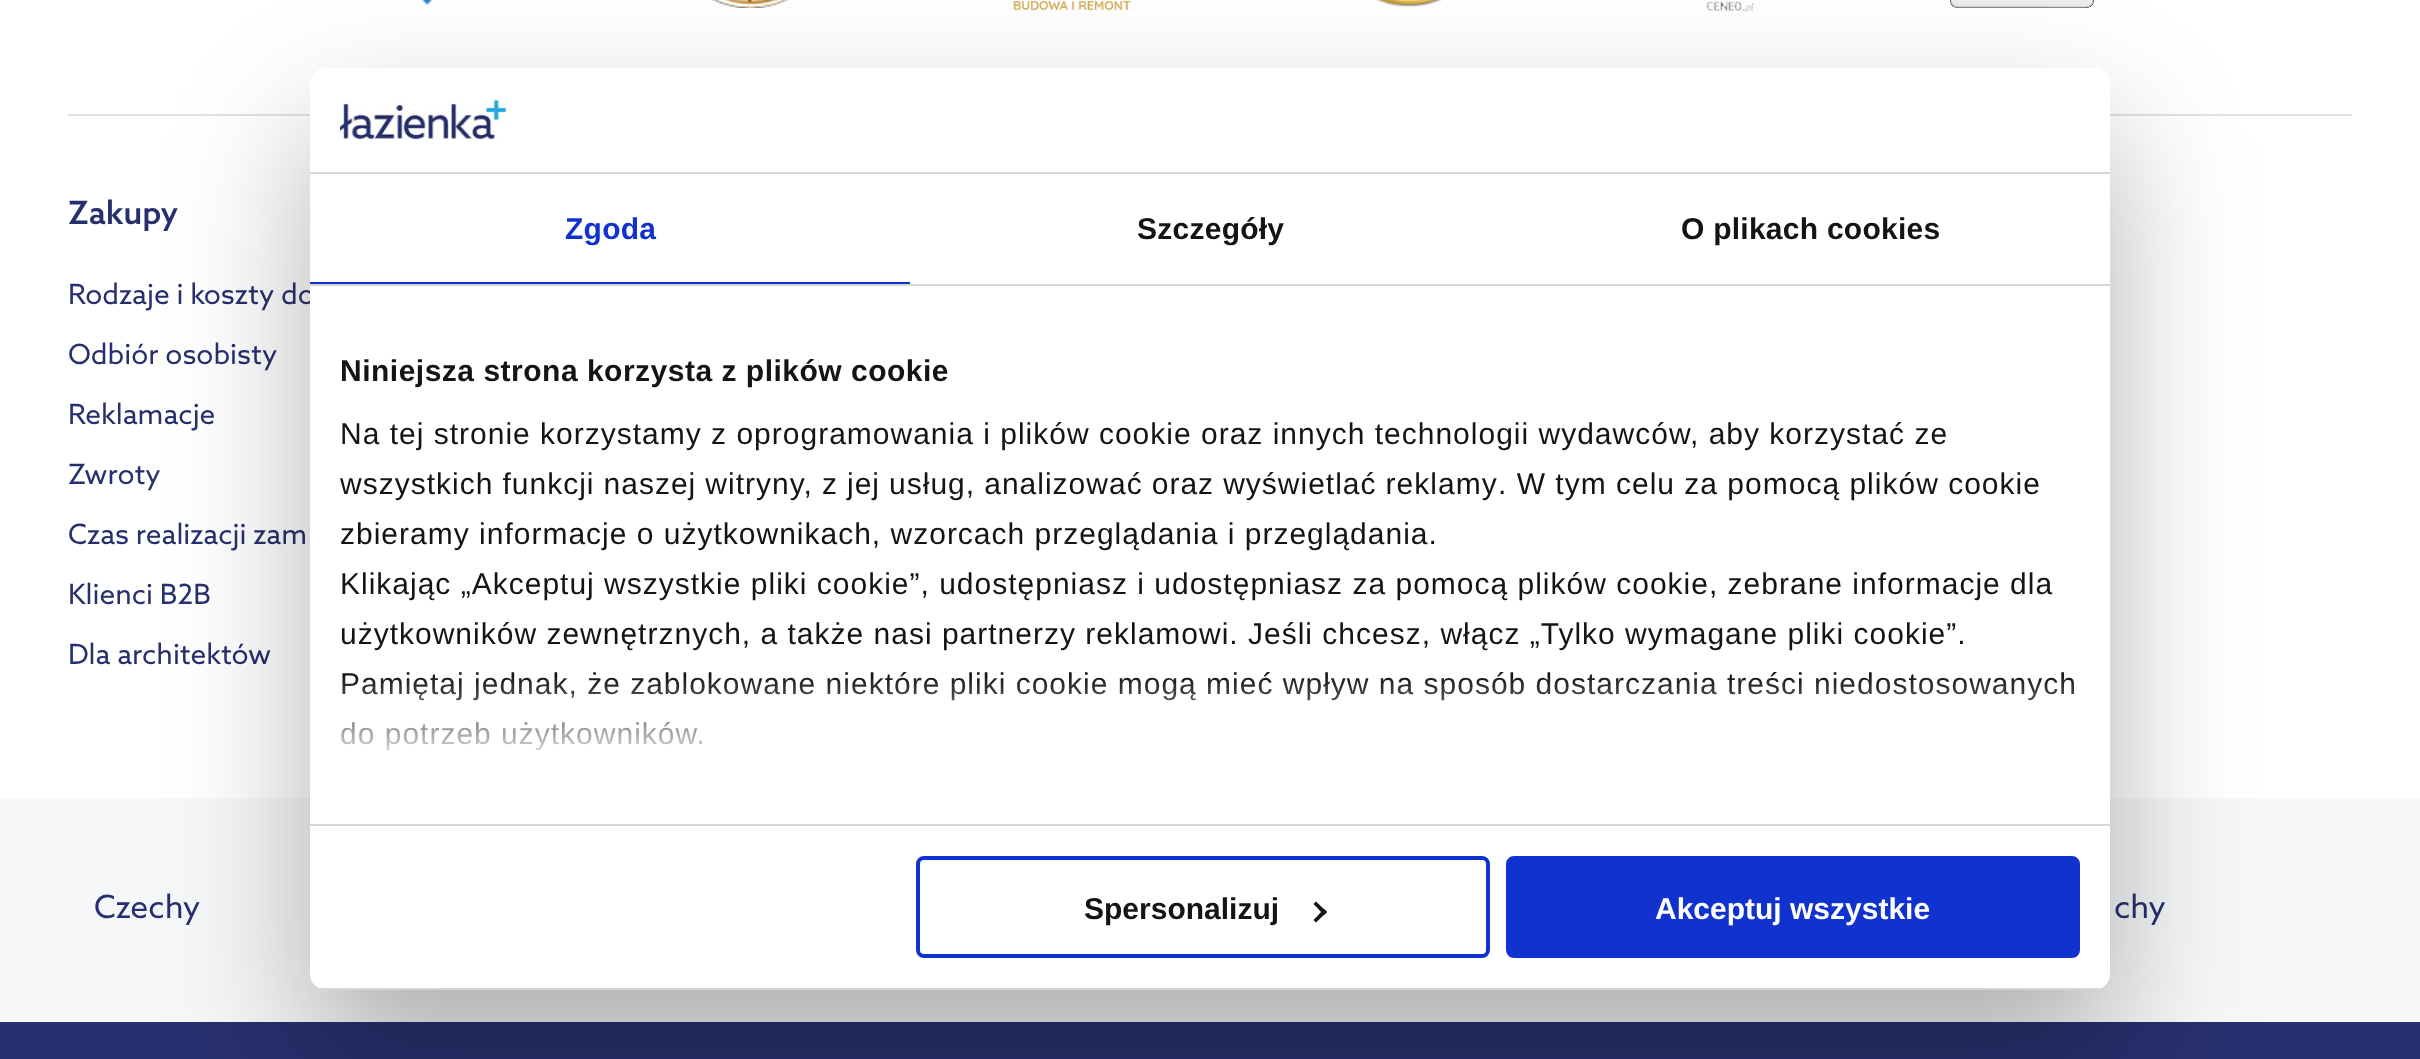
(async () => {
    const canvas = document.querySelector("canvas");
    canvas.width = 2420;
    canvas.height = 1059;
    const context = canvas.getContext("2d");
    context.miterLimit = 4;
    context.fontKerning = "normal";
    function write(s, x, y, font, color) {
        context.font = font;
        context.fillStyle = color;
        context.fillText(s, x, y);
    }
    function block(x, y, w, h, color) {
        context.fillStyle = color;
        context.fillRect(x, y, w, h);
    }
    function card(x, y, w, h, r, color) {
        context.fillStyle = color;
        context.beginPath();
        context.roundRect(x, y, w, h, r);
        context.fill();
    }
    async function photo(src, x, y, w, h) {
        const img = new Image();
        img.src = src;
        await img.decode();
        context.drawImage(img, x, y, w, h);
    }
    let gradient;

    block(0, 0, 2420, 1059, "rgb(255, 255, 255)");
    block(68, 114, 2284, 2, "rgb(223, 224, 233)");
    await photo("media/1.png", 421, 0, 13, 5);
    await photo("media/2.png", 711, 0, 78, 8);
    await photo("media/3.png", 1013, 0, 118, 11);
    await photo("media/4.png", 1375, 0, 67, 7);
    await photo("media/5.png", 1706, 1, 48, 12);
    await photo("media/6.png", 1950, 0, 144, 8);
    write("Zakupy", 68, 224, "500 32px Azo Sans", "rgb(39, 48, 110)");
    write("Rodzaje i koszty do", 68, 304, "28px Azo Sans", "rgb(39, 48, 110)");
    write("Odbiór osobisty", 68, 364, "28px Azo Sans", "rgb(39, 48, 110)");
    write("Reklamacje", 68, 424, "28px Azo Sans", "rgb(39, 48, 110)");
    write("Zwroty", 68, 484, "28px Azo Sans", "rgb(39, 48, 110)");
    write("Czas realizacji zam", 68, 544, "28px Azo Sans", "rgb(39, 48, 110)");
    write("Klienci B2B", 68, 604, "28px Azo Sans", "rgb(39, 48, 110)");
    write("Dla architektów", 68, 664, "28px Azo Sans", "rgb(39, 48, 110)");
    block(0, 798, 2420, 224, "rgb(246, 247, 249)");
    write("Czechy", 94, 918, "32px Azo Sans", "rgb(39, 48, 110)");
    write("chy", 2114, 918, "32px Azo Sans", "rgb(39, 48, 110)");
    block(0, 1022, 2420, 37, "rgb(39, 48, 110)");
    context.fillStyle = "rgba(0, 0, 0, 0.3)";
    context.filter = "blur(68px)";
    context.beginPath();
    context.roundRect(310, 132, 1800, 922, 16);
    context.fill();
    context.filter = "none";
    card(310, 68, 1800, 922, 16, "rgb(255, 255, 255)");
    block(310, 172, 1800, 2, "rgb(214, 214, 214)");
    await photo("media/7.png", 340, 99, 166, 41);
    block(310, 284, 1800, 2, "rgb(214, 214, 214)");
    block(310, 282, 600, 2, "rgb(16, 50, 207)");
    context.letterSpacing = "0.25px";
    write("Zgoda", 565, 239, "bold 30px Liberation Sans", "rgb(16, 50, 207)");
    write("Szczegóły", 1137, 239, "bold 30px Liberation Sans", "rgb(20, 20, 20)");
    write("O plikach cookies", 1681, 239, "bold 30px Liberation Sans", "rgb(20, 20, 20)");
    block(310, 824, 1800, 2, "rgb(214, 214, 214)");
    context.letterSpacing = "0.5px";
    write("Niniejsza strona korzysta z plików cookie", 340, 381, "bold 30px Liberation Sans", "rgb(20, 20, 20)");
    context.letterSpacing = "1px";
    write("Na tej stronie korzystamy z oprogramowania i plików cookie oraz innych technologii wydawców", 340, 444, "30px Liberation Sans", "rgb(20, 20, 20)");
    write(", aby korzystać ze", 1690, 444, "30px Liberation Sans", "rgb(20, 20, 20)");
    context.wordSpacing = "-0.25px";
    write("wszystkich funkcji naszej witryny, z jej usług, analizować oraz wyświetlać reklamy", 340, 494, "30px Liberation Sans", "rgb(20, 20, 20)");
    context.wordSpacing = "0px";
    write(". W tym celu za pomocą plików cookie", 1498, 494, "30px Liberation Sans", "rgb(20, 20, 20)");
    write("zbieramy informacje o użytkownikach, wzorcach przeglądania i przeglądania.", 340, 544, "30px Liberation Sans", "rgb(20, 20, 20)");
    write("Klikając „Akceptuj wszystkie pliki cookie”, udostępniasz i udostępniasz za pomocą plików cookie, zebrane informacje dla", 340, 594, "30px Liberation Sans", "rgb(20, 20, 20)");
    write("użytkowników zewnętrznych, a także nasi partnerzy reklamowi. Jeśli chcesz, włącz „Tylko wymagane pliki cookie”.", 340, 644, "30px Liberation Sans", "rgb(20, 20, 20)");
    write("Pamiętaj jednak, że zablokowane niektóre pliki cookie mogą mieć wpływ na sposób dostarczania treści niedostosowanych", 340, 694, "30px Liberation Sans", "rgb(20, 20, 20)");
    write("do potrzeb użytkowników.", 340, 744, "30px Liberation Sans", "rgb(20, 20, 20)");
    gradient = context.createLinearGradient(1197, 825, 1197, 675);
    gradient.addColorStop(0, "rgb(255, 255, 255)");
    gradient.addColorStop(0.5, "rgba(255, 255, 255, 0.8)");
    gradient.addColorStop(1, "rgba(255, 255, 255, 0)");
    context.fillStyle = gradient;
    context.fillRect(341, 677, 1733, 74);
    context.save();
    context.beginPath();
    context.roundRect(310, 68, 1800, 922, 16);
    context.clip();
    block(310, 988, 1800, 2, "rgb(214, 214, 214)");
    context.restore();
    context.beginPath();
    context.roundRect(918, 858, 570, 98, 6);
    context.strokeStyle = "rgb(16, 50, 207)";
    context.lineWidth = 4;
    context.stroke();
    context.letterSpacing = "0px";
    write("Spersonalizuj", 1084, 919, "bold 30px Liberation Sans", "rgb(20, 20, 20)");
    context.beginPath();
    context.moveTo(1316, 901.5);
    context.lineTo(1327, 912);
    context.lineTo(1324, 915);
    context.lineTo(1313.5, 904);
    context.closePath();
    context.fill();
    context.beginPath();
    context.moveTo(1324, 909);
    context.lineTo(1327, 912);
    context.lineTo(1316, 922.5);
    context.lineTo(1313.5, 920);
    context.closePath();
    context.fill();
    context.fillStyle = "rgb(16, 50, 207)";
    context.beginPath();
    context.roundRect(1508, 858, 570, 98, 6);
    context.fill();
    context.stroke();
    write("Akceptuj wszystkie", 1655, 919, "bold 30px Liberation Sans", "rgb(255, 255, 255)");
})();
